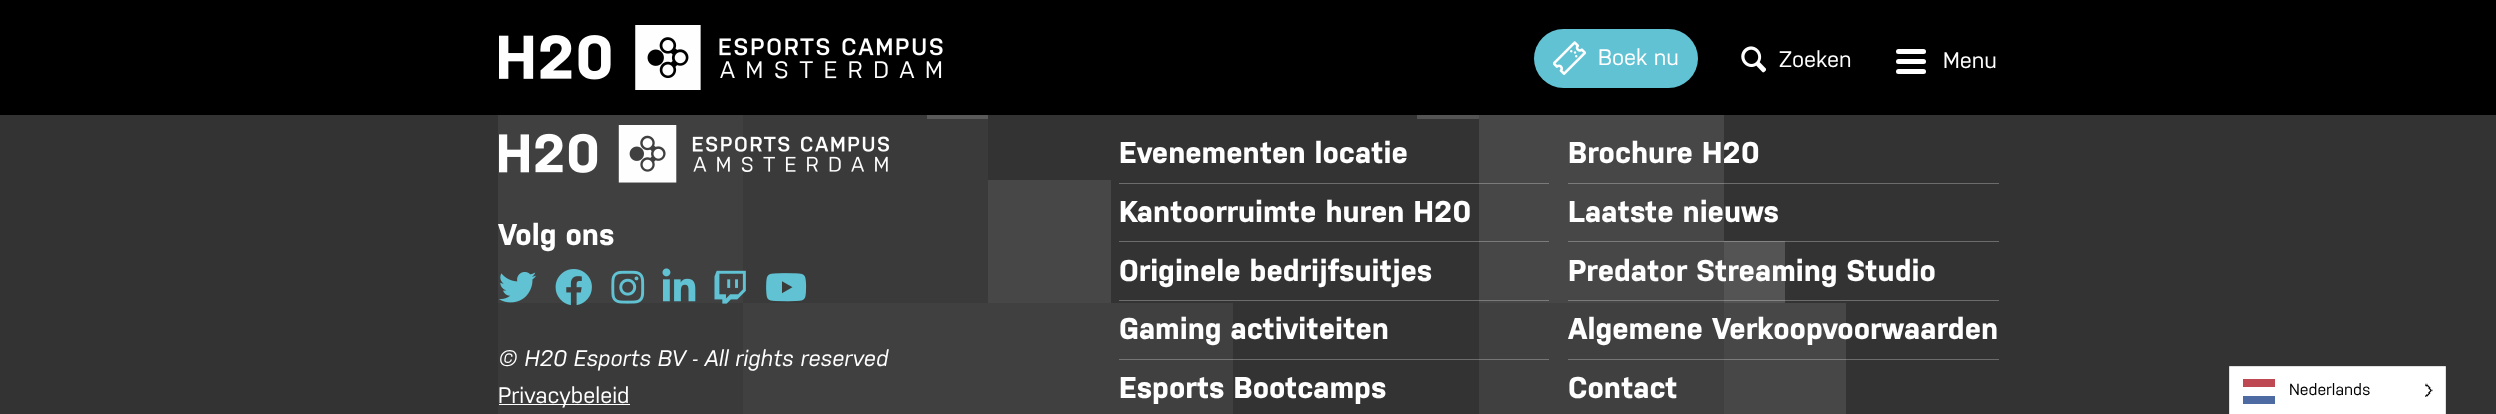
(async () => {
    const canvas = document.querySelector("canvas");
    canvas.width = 2496;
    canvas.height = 414;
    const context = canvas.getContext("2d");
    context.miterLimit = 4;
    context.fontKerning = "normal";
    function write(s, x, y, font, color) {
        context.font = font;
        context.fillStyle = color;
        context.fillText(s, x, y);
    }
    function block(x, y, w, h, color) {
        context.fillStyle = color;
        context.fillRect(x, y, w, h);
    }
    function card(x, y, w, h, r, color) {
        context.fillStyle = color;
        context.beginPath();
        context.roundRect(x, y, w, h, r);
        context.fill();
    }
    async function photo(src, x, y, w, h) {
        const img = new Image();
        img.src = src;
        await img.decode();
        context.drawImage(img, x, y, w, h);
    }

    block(0, 0, 2496, 414, "rgb(51, 51, 51)");
    block(0, 0, 2496, 115, "rgb(0, 0, 0)");
    await photo("media/1.png", 499, 25, 444, 65);
    card(1534, 29, 164, 59, 29.5, "rgb(96, 194, 210)");
    await photo("media/2.png", 1553, 41, 33, 34);
    write("Boek nu", 1598, 65, "500 22.5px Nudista", "rgb(255, 255, 255)");
    await photo("media/3.png", 1741, 46, 25, 27);
    write("Zoeken", 1779, 67, "500 22.5px Nudista", "rgb(255, 255, 255)");
    card(1896, 69, 30, 5, 2.5, "rgb(255, 255, 255)");
    card(1896, 59, 30, 5, 2.5, "rgb(255, 255, 255)");
    card(1896, 49, 30, 5, 2.5, "rgb(255, 255, 255)");
    write("Menu", 1943, 68, "500 22.5px Nudista", "rgb(255, 255, 255)");
    block(1846, 359, 153, 1, "rgb(108, 108, 108)");
    block(1785, 300, 214, 1, "rgb(108, 108, 108)");
    block(1785, 241, 214, 1, "rgb(108, 108, 108)");
    block(1724, 183, 275, 1, "rgb(108, 108, 108)");
    block(1233, 359, 246, 1, "rgb(108, 108, 108)");
    block(1119, 300, 360, 1, "rgb(108, 108, 108)");
    block(1119, 241, 360, 1, "rgb(108, 108, 108)");
    block(1119, 183, 360, 1, "rgb(108, 108, 108)");
    block(1479, 115, 245, 188, "rgb(71, 71, 71)");
    block(1568, 300, 156, 1, "rgb(123, 123, 123)");
    block(1568, 241, 156, 1, "rgb(123, 123, 123)");
    block(1568, 183, 156, 1, "rgb(123, 123, 123)");
    block(1479, 300, 70, 1, "rgb(123, 123, 123)");
    block(1479, 241, 70, 1, "rgb(123, 123, 123)");
    block(1479, 183, 70, 1, "rgb(123, 123, 123)");
    block(743, 115, 245, 188, "rgb(58, 58, 58)");
    block(498, 303, 245, 111, "rgb(58, 58, 58)");
    block(498, 115, 245, 188, "rgb(64, 64, 64)");
    block(1479, 303, 245, 111, "rgb(64, 64, 64)");
    block(1568, 359, 156, 1, "rgb(117, 117, 117)");
    block(1479, 359, 70, 1, "rgb(117, 117, 117)");
    block(743, 303, 490, 111, "rgb(64, 64, 64)");
    block(1119, 359, 114, 1, "rgb(117, 117, 117)");
    block(988, 180, 123, 123, "rgb(71, 71, 71)");
    block(1724, 303, 122, 111, "rgb(71, 71, 71)");
    block(1724, 359, 122, 1, "rgb(123, 123, 123)");
    block(1724, 242, 61, 61, "rgb(84, 84, 84)");
    block(1724, 300, 61, 1, "rgb(132, 132, 132)");
    block(1724, 241, 61, 1, "rgb(132, 132, 132)");
    block(927, 115, 61, 4, "rgb(90, 90, 90)");
    block(1417, 115, 62, 4, "rgb(84, 84, 84)");
    await photo("media/4.png", 499, 125, 390, 58);
    write("Volg ons", 498, 245, "bold 30px Nudista", "rgb(255, 255, 255)");
    await photo("media/5.png", 499, 272, 38, 31);
    await photo("media/6.png", 555, 269, 37, 37);
    await photo("media/7.png", 611, 270, 34, 34);
    await photo("media/8.png", 662, 268, 34, 34);
    await photo("media/9.png", 714, 270, 32, 34);
    await photo("media/10.png", 766, 273, 41, 29);
    write("© H20 Esports BV - All rights reserved", 498, 366, "italic 500 22.5px Nudista", "rgb(255, 255, 255)");
    block(499, 404, 131, 1, "rgb(255, 255, 255)");
    write("Privacybeleid", 498, 403, "500 22.5px Nudista", "rgb(255, 255, 255)");
    write("Evenementen locatie", 1119, 163, "bold 30px Nudista", "rgb(255, 255, 255)");
    write("Brochure H20", 1568, 163, "bold 30px Nudista", "rgb(255, 255, 255)");
    write("Kantoorruimte huren H20", 1119, 222, "bold 30px Nudista", "rgb(255, 255, 255)");
    write("Laatste nieuws", 1568, 222, "bold 30px Nudista", "rgb(255, 255, 255)");
    write("Originele bedrijfsuitjes", 1119, 281, "bold 30px Nudista", "rgb(255, 255, 255)");
    write("Predator Streaming Studio", 1568, 281, "bold 30px Nudista", "rgb(255, 255, 255)");
    write("Gaming activiteiten", 1119, 339, "bold 30px Nudista", "rgb(255, 255, 255)");
    write("Algemene Verkoopvoorwaarden", 1568, 339, "bold 30px Nudista", "rgb(255, 255, 255)");
    write("Esports Bootcamps", 1119, 398, "bold 30px Nudista", "rgb(255, 255, 255)");
    write("Contact", 1568, 398, "bold 30px Nudista", "rgb(255, 255, 255)");
    context.beginPath();
    context.rect(2229.5, 366.5, 216, 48);
    context.fill();
    context.strokeStyle = "rgb(224, 224, 224)";
    context.stroke();
    block(2243, 379, 32, 8, "rgb(190, 73, 83)");
    block(2243, 396, 32, 8, "rgb(77, 107, 162)");
    write("Nederlands", 2289, 395, "500 16.25px Nudista", "rgb(0, 0, 0)");
    await photo("media/11.png", 2425, 383, 8, 14);
})();
